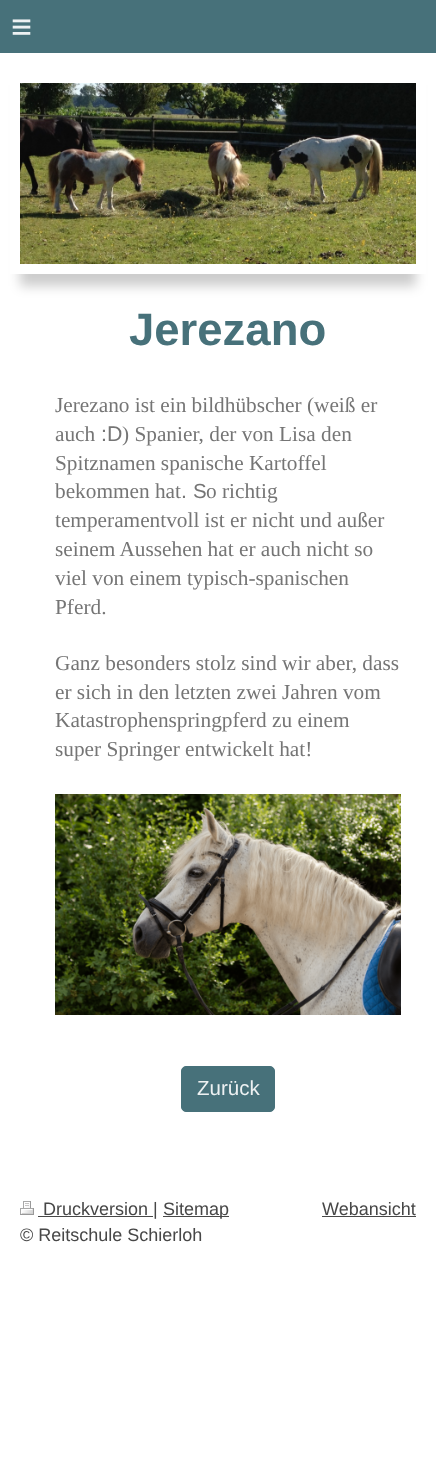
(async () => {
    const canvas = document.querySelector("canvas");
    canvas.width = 436;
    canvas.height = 1459;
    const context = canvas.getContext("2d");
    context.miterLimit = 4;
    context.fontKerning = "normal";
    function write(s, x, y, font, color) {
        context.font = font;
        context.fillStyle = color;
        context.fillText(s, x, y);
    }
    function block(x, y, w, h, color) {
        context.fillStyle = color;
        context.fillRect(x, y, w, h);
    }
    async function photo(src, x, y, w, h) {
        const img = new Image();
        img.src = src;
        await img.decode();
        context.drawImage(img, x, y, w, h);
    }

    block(0, 0, 436, 1459, "rgb(255, 255, 255)");
    block(0, 0, 436, 53, "rgb(71, 113, 122)");
    context.letterSpacing = "10px";
    write("≡", 11, 39, "36px Liberation Sans", "rgb(237, 241, 242)");
    context.fillStyle = "rgba(0, 0, 0, 0.2)";
    context.filter = "blur(6px)";
    context.beginPath();
    context.rect(20, 85, 396, 201);
    context.fill();
    context.filter = "none";
    context.strokeStyle = "rgb(255, 255, 255)";
    context.lineWidth = 10;
    context.strokeRect(15, 78, 406, 191);
    await photo("media/1.png", 20, 83, 396, 181);
    context.letterSpacing = "0px";
    write("Jerezano", 129, 345, "bold 45.5px Liberation Sans", "rgb(71, 113, 122)");
    write("Jerezano ist ein bildhübscher (weiß er", 55, 412, "21.3px Liberation Serif", "rgb(117, 117, 117)");
    write("auch", 55, 441, "21.3px Liberation Serif", "rgb(117, 117, 117)");
    write(":D", 101, 441, "21.3px Liberation Sans", "rgb(117, 117, 117)");
    write(") Spanier, der von Lisa den", 122, 441, "21.3px Liberation Serif", "rgb(117, 117, 117)");
    write("Spitznamen spanische Kartoffel", 55, 470, "21.3px Liberation Serif", "rgb(117, 117, 117)");
    write("bekommen hat", 55, 498, "21.3px Liberation Serif", "rgb(117, 117, 117)");
    write(".", 181, 498, "21.3px Liberation Sans", "rgb(117, 117, 117)");
    write("S", 193, 498, "20.5px Liberation Sans", "rgb(117, 117, 117)");
    write("o richtig", 206, 498, "21.3px Liberation Serif", "rgb(117, 117, 117)");
    write("temperamentvoll ist er nicht und außer", 55, 527, "21.3px Liberation Serif", "rgb(117, 117, 117)");
    write("seinem Aussehen hat er auch nicht so", 55, 556, "21.3px Liberation Serif", "rgb(117, 117, 117)");
    write("viel von einem typisch-spanischen", 55, 585, "21.3px Liberation Serif", "rgb(117, 117, 117)");
    write("Pferd.", 55, 614, "21.3px Liberation Serif", "rgb(117, 117, 117)");
    write("Ganz besonders stolz sind wir aber, dass", 55, 670, "21.3px Liberation Serif", "rgb(117, 117, 117)");
    write("er sich in den letzten zwei Jahren vom", 55, 699, "21.3px Liberation Serif", "rgb(117, 117, 117)");
    write("Katastrophenspringpferd zu einem", 55, 727, "21.3px Liberation Serif", "rgb(117, 117, 117)");
    write("super Springer entwickelt hat!", 55, 756, "21.3px Liberation Serif", "rgb(117, 117, 117)");
    await photo("media/2.png", 55, 794, 346, 221);
    context.fillStyle = "rgb(71, 113, 122)";
    context.beginPath();
    context.roundRect(181.5, 1066.5, 93, 45, 4.5);
    context.fill();
    context.strokeStyle = "rgb(71, 113, 122)";
    context.lineWidth = 1;
    context.stroke();
    write("Zurück", 197, 1095, "20.5px Liberation Sans", "rgb(237, 241, 242)");
    await photo("media/3.png", 20, 1201, 14, 14);
    block(38, 1216, 115, 1, "rgb(71, 71, 71)");
    write("Druckversion |", 43, 1215, "18px Liberation Sans", "rgb(71, 71, 71)");
    block(163, 1216, 66, 1, "rgb(71, 71, 71)");
    write("Sitemap", 163, 1215, "18px Liberation Sans", "rgb(71, 71, 71)");
    write("© Reitschule Schierloh", 20, 1241, "18px Liberation Sans", "rgb(71, 71, 71)");
    write("Webansicht", 322, 1215, "18px Liberation Sans", "rgb(71, 71, 71)");
    block(322, 1216, 94, 1, "rgb(71, 71, 71)");
})();
